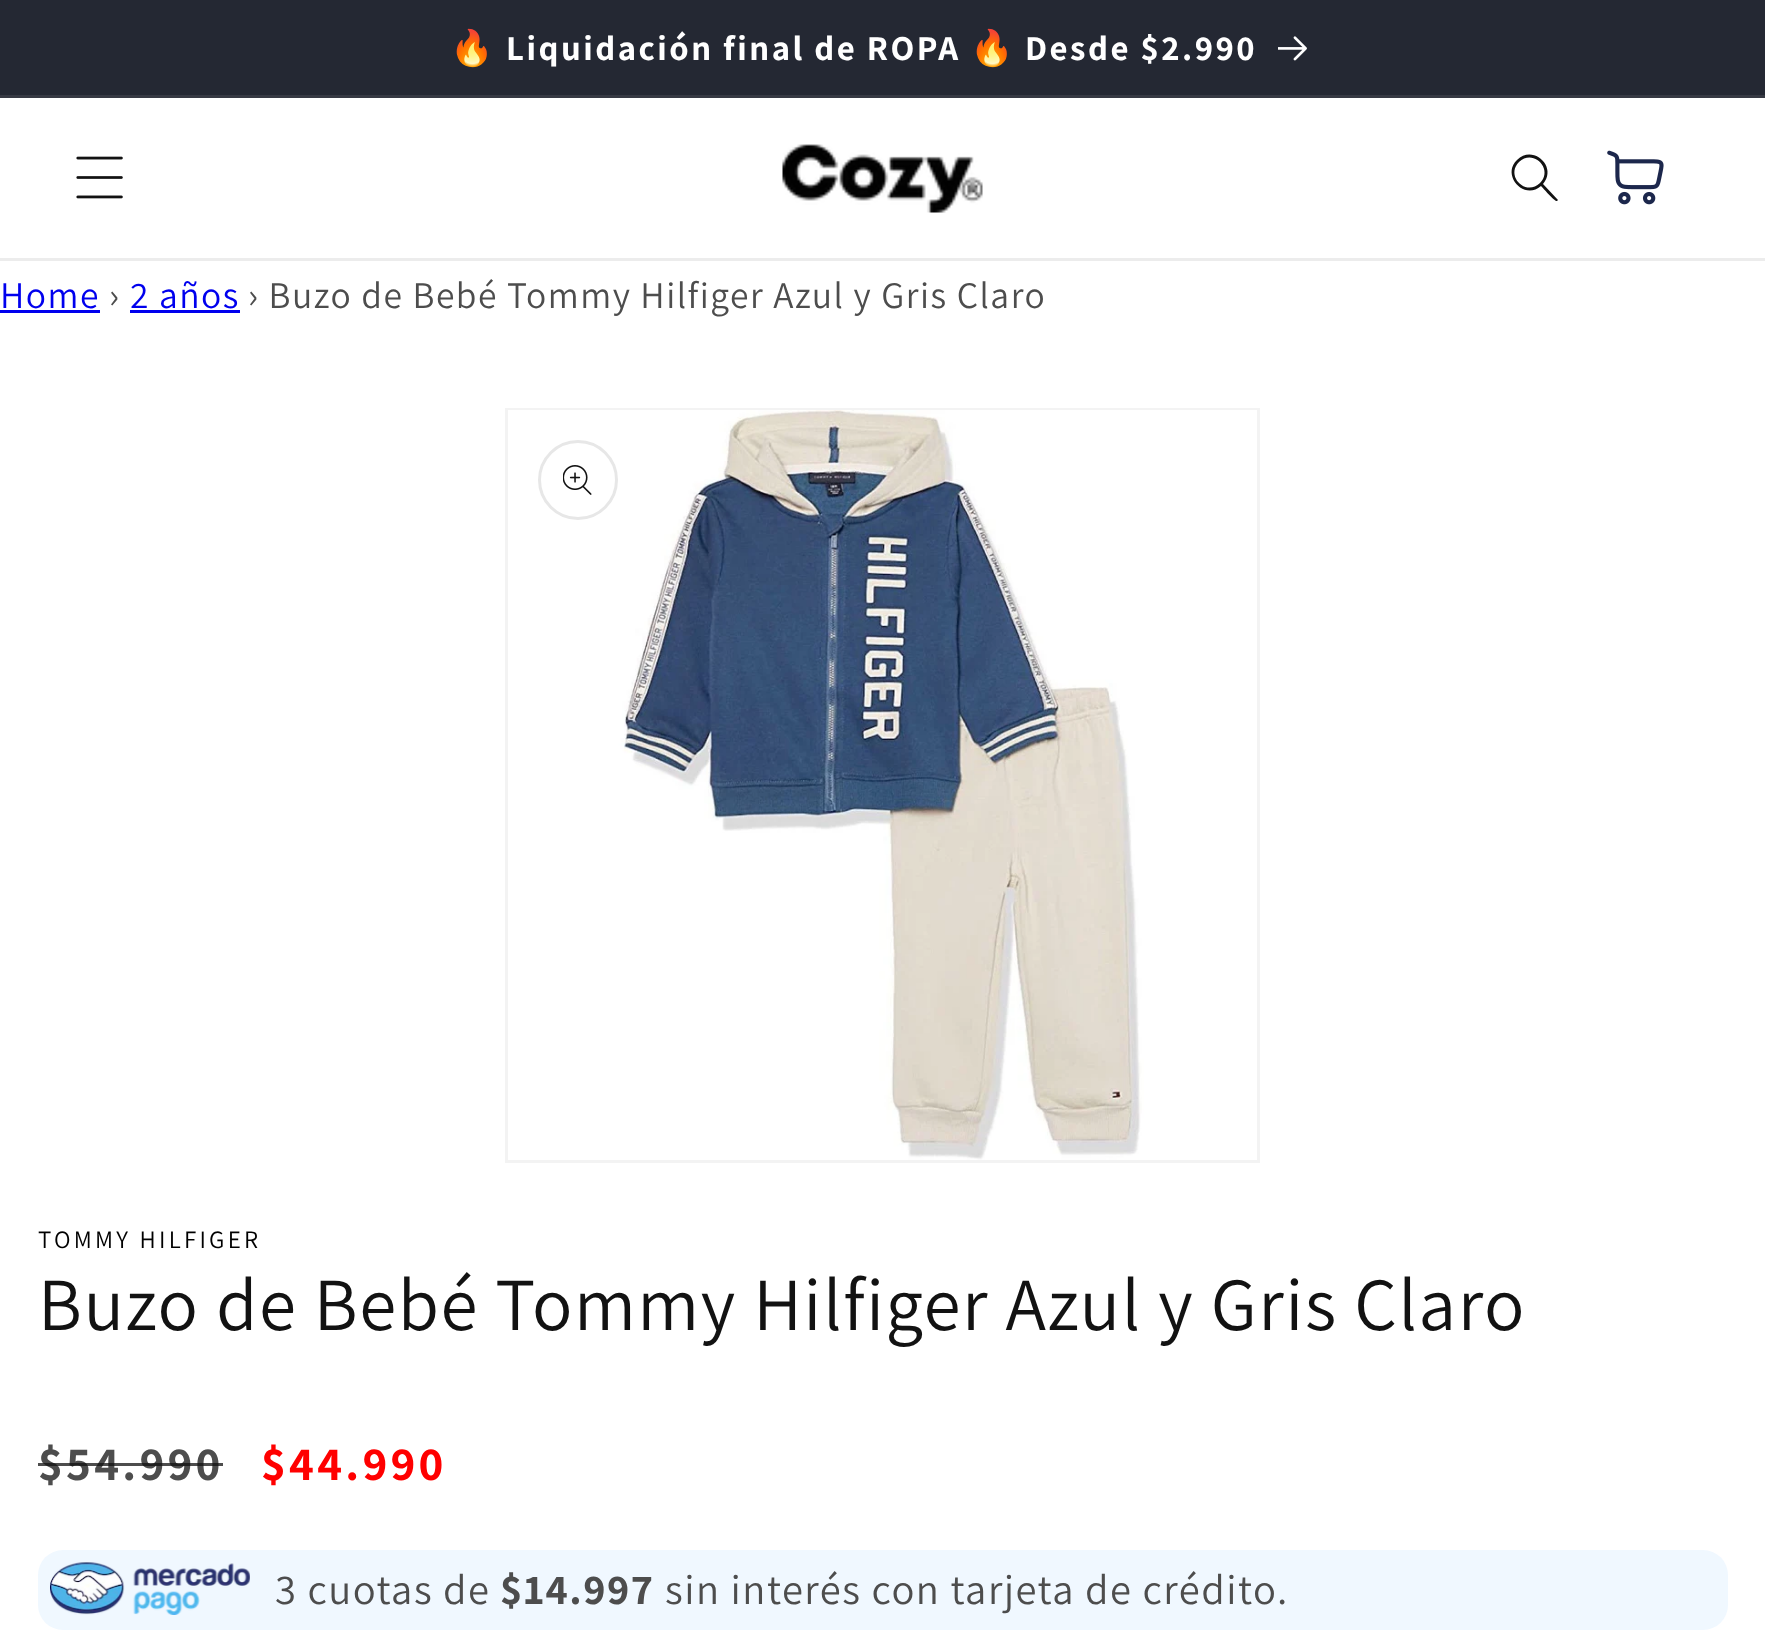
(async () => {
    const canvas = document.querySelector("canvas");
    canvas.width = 1765;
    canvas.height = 1643;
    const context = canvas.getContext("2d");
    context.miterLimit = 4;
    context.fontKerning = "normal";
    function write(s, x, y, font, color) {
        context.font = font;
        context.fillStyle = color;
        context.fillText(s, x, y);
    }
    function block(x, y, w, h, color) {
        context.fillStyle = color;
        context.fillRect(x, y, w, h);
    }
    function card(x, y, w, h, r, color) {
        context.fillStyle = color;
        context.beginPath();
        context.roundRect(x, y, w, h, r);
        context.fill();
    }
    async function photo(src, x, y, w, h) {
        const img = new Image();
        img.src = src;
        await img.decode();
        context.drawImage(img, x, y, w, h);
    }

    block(0, 0, 1765, 1643, "rgb(255, 255, 255)");
    block(0, 0, 1765, 95, "rgb(36, 40, 51)");
    block(0, 95, 1765, 3, "rgb(54, 57, 67)");
    context.letterSpacing = "2.5px";
    write("🔥", 450, 60, "bold 35px Noto Color Emoji", "rgb(255, 255, 255)");
    write("Liquidación final de ROPA", 506, 60, "bold 35px Assistant", "rgb(255, 255, 255)");
    write("🔥", 970, 60, "bold 35px Noto Color Emoji", "rgb(255, 255, 255)");
    write("Desde $2.990", 1025, 60, "bold 35px Assistant", "rgb(255, 255, 255)");
    await photo("media/1.png", 1278, 36, 29, 25);
    block(0, 258, 1765, 3, "rgb(236, 236, 236)");
    await photo("media/2.png", 76, 156, 47, 43);
    await photo("media/3.png", 782, 144, 201, 69);
    context.fillStyle = "rgb(18, 18, 18)";
    context.beginPath();
    context.moveTo(1540, 183);
    context.bezierCurveTo(1526, 197, 1505, 176, 1519, 162);
    context.bezierCurveTo(1533, 148, 1554, 169, 1540, 183);
    context.closePath();
    context.moveTo(1541, 186);
    context.bezierCurveTo(1524, 201, 1501, 175, 1517, 160);
    context.bezierCurveTo(1533, 144, 1558, 167, 1543, 184);
    context.lineTo(1558, 200);
    context.lineTo(1557, 201);
    context.bezierCurveTo(1555, 202, 1543, 188, 1541, 186);
    context.closePath();
    context.fill("evenodd");
    await photo("media/4.png", 1607, 150, 57, 55);
    context.letterSpacing = "1.5px";
    write("Home", 0, 308, "37.5px Assistant", "rgb(0, 0, 238)");
    block(0, 310, 100, 3, "rgb(0, 0, 238)");
    write("›", 109, 308, "37.5px Assistant", "rgb(77, 77, 77)");
    write("2 años", 130, 308, "37.5px Assistant", "rgb(0, 0, 238)");
    block(130, 310, 110, 3, "rgb(0, 0, 238)");
    write("› Buzo de Bebé Tommy Hilfiger Azul y Gris Claro", 248, 308, "37.5px Assistant", "rgb(77, 77, 77)");
    context.strokeStyle = "rgb(243, 243, 243)";
    context.lineWidth = 3;
    context.strokeRect(506.5, 409.5, 752, 752);
    await photo("media/5.png", 508, 410, 749, 750);
    context.beginPath();
    context.arc(578, 480, 38.5, 0, Math.PI * 2);
    context.strokeStyle = "rgb(231, 231, 231)";
    context.stroke();
    await photo("media/6.png", 563, 465, 29, 30);
    context.letterSpacing = "3.25px";
    write("TOMMY HILFIGER", 38, 1248, "25px Assistant", "rgb(0, 0, 0)");
    context.letterSpacing = "1.5px";
    write("Buzo de Bebé Tommy Hilfiger Azul y Gris Claro", 38, 1330, "75px Assistant", "rgb(18, 18, 18)");
    context.letterSpacing = "3.25px";
    write("$54.990", 38, 1480, "bold 47.5px Assistant", "rgb(77, 77, 77)");
    block(38, 1463, 185, 3, "rgba(18, 18, 18, 0.75)");
    write("$44.990", 261, 1480, "bold 47.5px Assistant", "rgb(255, 0, 0)");
    card(38, 1550, 1690, 80, 25, "rgb(240, 248, 255)");
    await photo("media/7.png", 50, 1562, 200, 53);
    context.letterSpacing = "1.5px";
    write("3 cuotas de", 275, 1604, "42.5px Assistant", "rgb(77, 77, 77)");
    write("$14.997", 500, 1604, "bold 42.5px Assistant", "rgb(77, 77, 77)");
    write("sin interés con tarjeta de crédito.", 665, 1604, "42.5px Assistant", "rgb(77, 77, 77)");
})();
